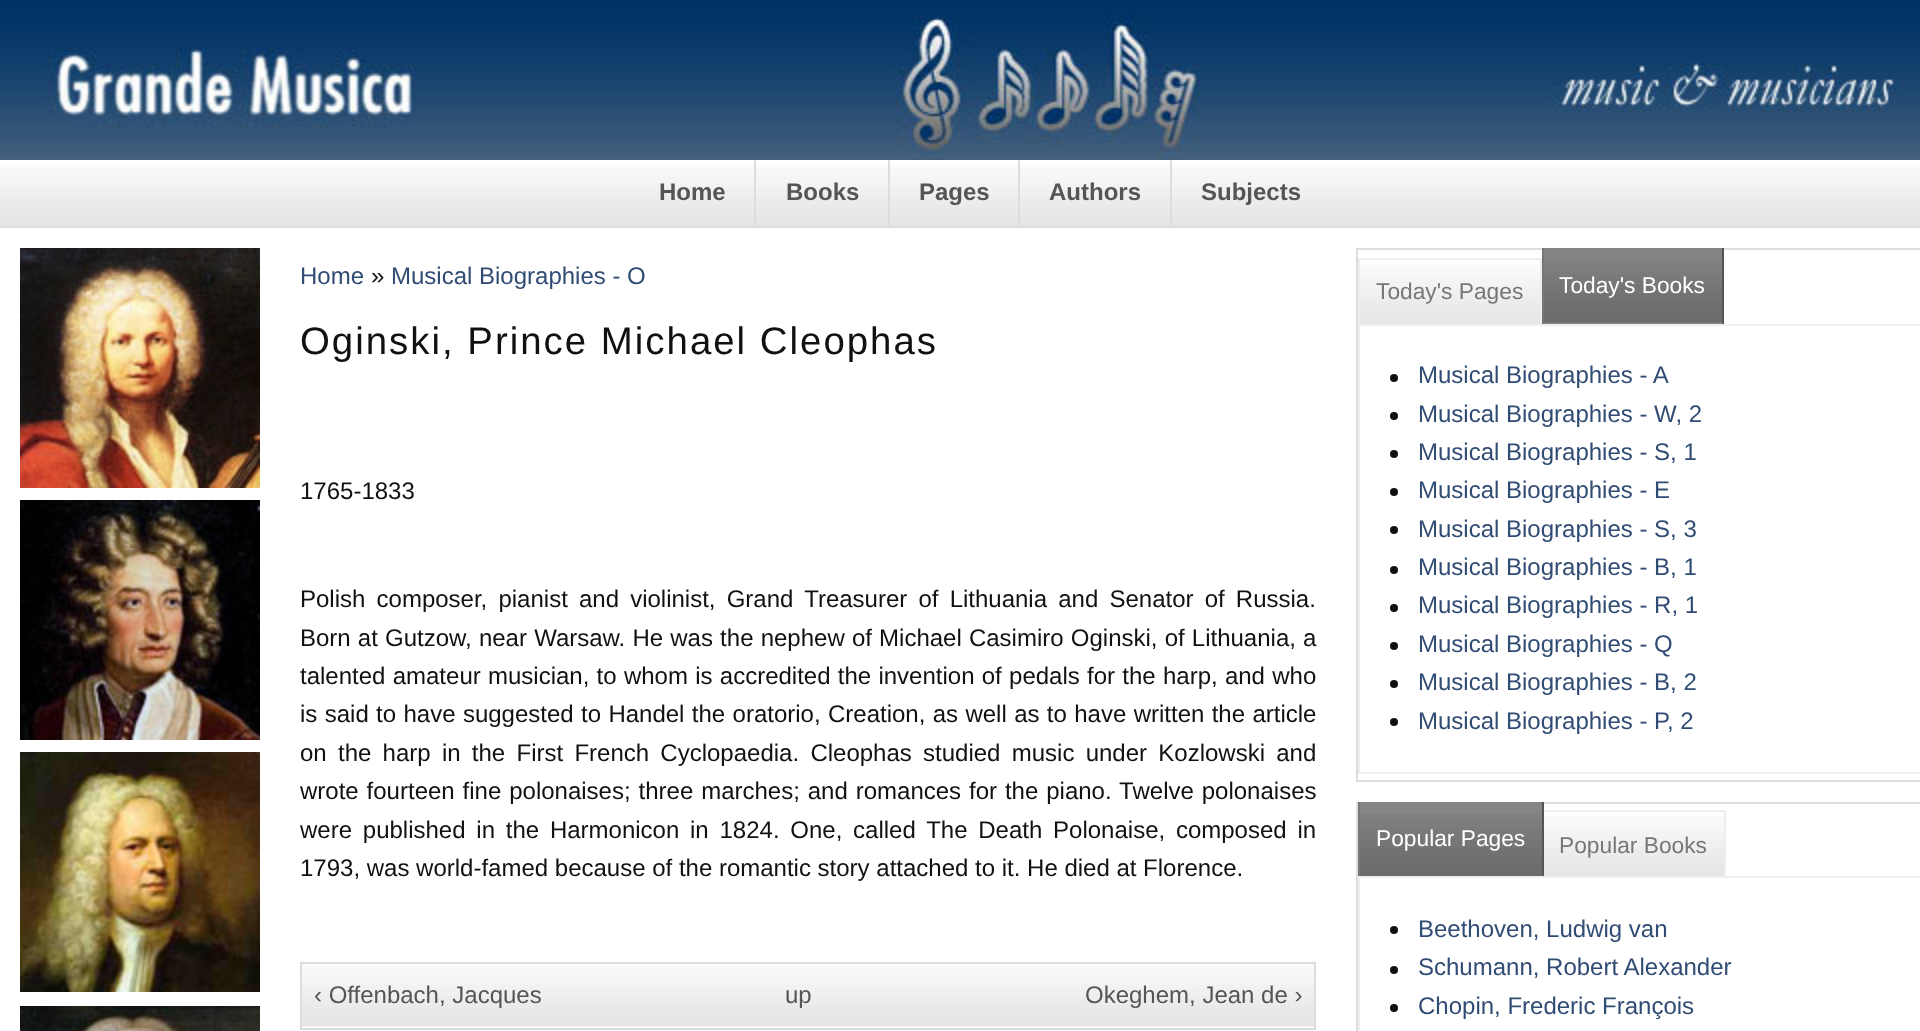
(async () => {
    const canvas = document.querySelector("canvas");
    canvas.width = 1920;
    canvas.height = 1031;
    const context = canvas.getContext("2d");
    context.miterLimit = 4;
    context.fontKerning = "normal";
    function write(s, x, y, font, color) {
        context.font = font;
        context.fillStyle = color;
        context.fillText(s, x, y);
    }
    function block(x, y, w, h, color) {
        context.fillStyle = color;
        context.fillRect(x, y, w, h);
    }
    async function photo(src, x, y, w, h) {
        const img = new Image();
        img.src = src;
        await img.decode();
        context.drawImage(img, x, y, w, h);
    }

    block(0, 0, 1920, 1031, "rgb(255, 255, 255)");
    await photo("media/1.png", 0, 0, 1920, 160);
    await photo("media/2.png", 0, 164, 1920, 62);
    block(0, 226, 1920, 2, "rgb(221, 221, 221)");
    block(754, 160, 2, 66, "rgb(221, 221, 221)");
    await photo("media/3.png", 630, 164, 124, 62);
    write("Home", 659, 200, "bold 24px Liberation Sans", "rgb(85, 85, 85)");
    block(888, 160, 2, 66, "rgb(221, 221, 221)");
    await photo("media/4.png", 756, 164, 132, 62);
    write("Books", 786, 200, "bold 24px Liberation Sans", "rgb(85, 85, 85)");
    block(1018, 160, 2, 66, "rgb(221, 221, 221)");
    await photo("media/5.png", 890, 164, 128, 62);
    write("Pages", 919, 200, "bold 24px Liberation Sans", "rgb(85, 85, 85)");
    block(1170, 160, 2, 66, "rgb(221, 221, 221)");
    await photo("media/6.png", 1020, 164, 150, 62);
    write("Authors", 1049, 200, "bold 24px Liberation Sans", "rgb(85, 85, 85)");
    await photo("media/7.png", 1172, 164, 158, 62);
    write("Subjects", 1201, 200, "bold 24px Liberation Sans", "rgb(85, 85, 85)");
    await photo("media/8.png", 20, 248, 240, 240);
    await photo("media/9.png", 20, 500, 240, 240);
    await photo("media/10.png", 20, 752, 240, 240);
    await photo("media/11.png", 20, 1006, 240, 25);
    write("Home", 300, 284, "24px Liberation Sans", "rgb(49, 76, 116)");
    write("»", 371, 284, "24px Liberation Sans", "rgb(17, 17, 17)");
    write("Musical Biographies - O", 391, 284, "24px Liberation Sans", "rgb(49, 76, 116)");
    context.letterSpacing = "2px";
    write("Oginski, Prince Michael Cleophas", 300, 354, "38.4px Liberation Sans", "rgb(17, 17, 17)");
    context.letterSpacing = "0px";
    write("1765-1833", 300, 499, "24px Liberation Sans", "rgb(17, 17, 17)");
    context.wordSpacing = "4.5px";
    write("Polish composer, pianist and violinist, Grand Treasurer of Lithuania and Senator of Russia.", 300, 607, "24px Liberation Sans", "rgb(17, 17, 17)");
    context.wordSpacing = "0.5px";
    write("Born at Gutzow, near Warsaw. He was the nephew of Michael Casimiro Oginski, of Lithuania, a", 300, 646, "24px Liberation Sans", "rgb(17, 17, 17)");
    context.wordSpacing = "0.6px";
    write("talented amateur musician, to whom is accredited the invention of pedals for the harp, and who", 300, 684, "24px Liberation Sans", "rgb(17, 17, 17)");
    context.wordSpacing = "0.7px";
    write("is said to have suggested to Handel the oratorio, Creation, as well as to have written the article", 300, 722, "24px Liberation Sans", "rgb(17, 17, 17)");
    context.wordSpacing = "4.6px";
    write("on the harp in the First French Cyclopaedia. Cleophas studied music under Kozlowski and", 300, 761, "24px Liberation Sans", "rgb(17, 17, 17)");
    context.wordSpacing = "1.25px";
    write("wrote fourteen fine polonaises; three marches; and romances for the piano. Twelve polonaises", 300, 799, "24px Liberation Sans", "rgb(17, 17, 17)");
    context.wordSpacing = "4.1px";
    write("were published in the Harmonicon in 1824. One, called The Death Polonaise, composed in", 300, 838, "24px Liberation Sans", "rgb(17, 17, 17)");
    context.wordSpacing = "0px";
    write("1793, was world-famed because of the romantic story attached to it. He died at Florence.", 300, 876, "24px Liberation Sans", "rgb(17, 17, 17)");
    context.strokeStyle = "rgb(221, 221, 221)";
    context.lineWidth = 2;
    context.strokeRect(301, 963, 1014, 66);
    await photo("media/12.png", 302, 964, 1012, 63);
    write("‹ Offenbach, Jacques", 314, 1003, "24px Liberation Sans", "rgb(85, 85, 85)");
    write("up", 785, 1003, "24px Liberation Sans", "rgb(85, 85, 85)");
    write("Okeghem, Jean de ›", 1085, 1003, "24px Liberation Sans", "rgb(85, 85, 85)");
    context.strokeRect(1357, 249, 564, 532);
    await photo("media/13.png", 1360, 265, 180, 59);
    block(1358, 258, 184, 2, "rgb(238, 238, 238)");
    block(1540, 258, 2, 68, "rgb(238, 238, 238)");
    block(1358, 258, 2, 68, "rgb(238, 238, 238)");
    write("Today's Pages", 1376, 299, "22.75px Liberation Sans", "rgb(119, 119, 119)");
    block(1544, 248, 178, 76, "rgb(133, 133, 133)");
    await photo("media/14.png", 1544, 260, 178, 63);
    block(1722, 248, 2, 78, "rgb(85, 85, 85)");
    block(1542, 248, 2, 78, "rgb(119, 119, 119)");
    write("Today's Books", 1559, 293, "22.75px Liberation Sans", "rgb(255, 255, 255)");
    context.strokeStyle = "rgb(238, 238, 238)";
    context.strokeRect(1359, 325, 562, 448);
    context.fillStyle = "rgb(17, 17, 17)";
    context.beginPath();
    context.arc(1394, 378, 4, 0, Math.PI * 2);
    context.fill();
    write("Musical Biographies - A", 1418, 383, "24px Liberation Sans", "rgb(49, 76, 116)");
    context.fillStyle = "rgb(17, 17, 17)";
    context.beginPath();
    context.arc(1394, 416, 4, 0, Math.PI * 2);
    context.fill();
    write("Musical Biographies - W, 2", 1418, 422, "24px Liberation Sans", "rgb(49, 76, 116)");
    context.fillStyle = "rgb(17, 17, 17)";
    context.beginPath();
    context.arc(1394, 454, 4, 0, Math.PI * 2);
    context.fill();
    write("Musical Biographies - S, 1", 1418, 460, "24px Liberation Sans", "rgb(49, 76, 116)");
    context.fillStyle = "rgb(17, 17, 17)";
    context.beginPath();
    context.arc(1394, 492, 4, 0, Math.PI * 2);
    context.fill();
    write("Musical Biographies - E", 1418, 498, "24px Liberation Sans", "rgb(49, 76, 116)");
    context.fillStyle = "rgb(17, 17, 17)";
    context.beginPath();
    context.arc(1394, 530, 4, 0, Math.PI * 2);
    context.fill();
    write("Musical Biographies - S, 3", 1418, 537, "24px Liberation Sans", "rgb(49, 76, 116)");
    context.fillStyle = "rgb(17, 17, 17)";
    context.beginPath();
    context.arc(1394, 570, 4, 0, Math.PI * 2);
    context.fill();
    write("Musical Biographies - B, 1", 1418, 575, "24px Liberation Sans", "rgb(49, 76, 116)");
    context.fillStyle = "rgb(17, 17, 17)";
    context.beginPath();
    context.arc(1394, 608, 4, 0, Math.PI * 2);
    context.fill();
    write("Musical Biographies - R, 1", 1418, 613, "24px Liberation Sans", "rgb(49, 76, 116)");
    context.fillStyle = "rgb(17, 17, 17)";
    context.beginPath();
    context.arc(1394, 646, 4, 0, Math.PI * 2);
    context.fill();
    write("Musical Biographies - Q", 1418, 652, "24px Liberation Sans", "rgb(49, 76, 116)");
    context.fillStyle = "rgb(17, 17, 17)";
    context.beginPath();
    context.arc(1394, 684, 4, 0, Math.PI * 2);
    context.fill();
    write("Musical Biographies - B, 2", 1418, 690, "24px Liberation Sans", "rgb(49, 76, 116)");
    context.fillStyle = "rgb(17, 17, 17)";
    context.beginPath();
    context.arc(1394, 722, 4, 0, Math.PI * 2);
    context.fill();
    write("Musical Biographies - P, 2", 1418, 729, "24px Liberation Sans", "rgb(49, 76, 116)");
    context.strokeStyle = "rgb(221, 221, 221)";
    context.strokeRect(1357, 803, 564, 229);
    block(1360, 802, 182, 12, "rgb(133, 133, 133)");
    await photo("media/15.png", 1360, 814, 182, 62);
    block(1542, 802, 2, 76, "rgb(85, 85, 85)");
    block(1358, 802, 2, 76, "rgb(119, 119, 119)");
    write("Popular Pages", 1376, 846, "22.75px Liberation Sans", "rgb(255, 255, 255)");
    await photo("media/16.png", 1544, 816, 180, 60);
    block(1544, 810, 182, 2, "rgb(238, 238, 238)");
    block(1724, 810, 2, 70, "rgb(238, 238, 238)");
    write("Popular Books", 1559, 853, "22.75px Liberation Sans", "rgb(119, 119, 119)");
    block(1724, 878, 2, 2, "rgb(255, 255, 255)");
    context.strokeStyle = "rgb(238, 238, 238)";
    context.strokeRect(1359, 877, 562, 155);
    context.fillStyle = "rgb(17, 17, 17)";
    context.beginPath();
    context.arc(1394, 930, 4, 0, Math.PI * 2);
    context.fill();
    write("Beethoven, Ludwig van", 1418, 937, "24px Liberation Sans", "rgb(49, 76, 116)");
    context.fillStyle = "rgb(17, 17, 17)";
    context.beginPath();
    context.arc(1394, 970, 4, 0, Math.PI * 2);
    context.fill();
    write("Schumann, Robert Alexander", 1418, 975, "24px Liberation Sans", "rgb(49, 76, 116)");
    context.fillStyle = "rgb(17, 17, 17)";
    context.beginPath();
    context.arc(1394, 1008, 4, 0, Math.PI * 2);
    context.fill();
    write("Chopin, Frederic François", 1418, 1014, "24px Liberation Sans", "rgb(49, 76, 116)");
})();
